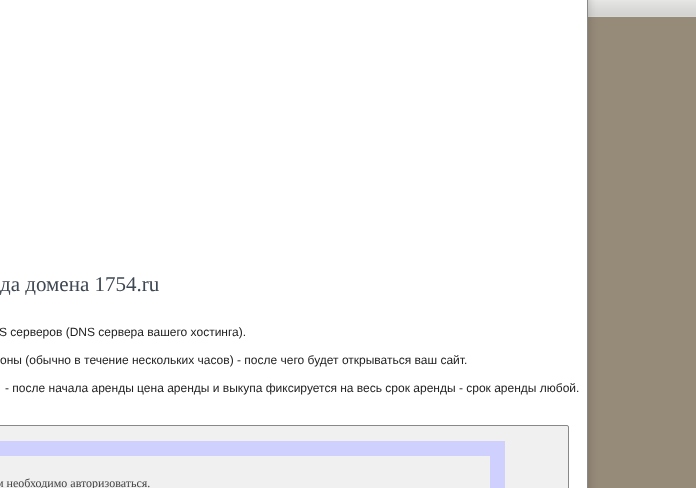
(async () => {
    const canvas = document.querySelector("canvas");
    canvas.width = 696;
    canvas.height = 488;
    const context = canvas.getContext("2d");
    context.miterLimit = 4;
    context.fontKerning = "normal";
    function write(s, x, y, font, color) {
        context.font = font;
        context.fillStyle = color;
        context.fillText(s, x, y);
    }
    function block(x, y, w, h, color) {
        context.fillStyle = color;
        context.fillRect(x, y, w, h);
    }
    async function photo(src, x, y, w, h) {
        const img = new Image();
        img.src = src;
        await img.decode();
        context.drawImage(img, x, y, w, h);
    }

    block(0, 0, 696, 488, "rgb(150, 139, 121)");
    await photo("media/1.png", 588, 0, 108, 17);
    context.fillStyle = "rgba(0, 0, 0, 0.2)";
    context.filter = "blur(5px)";
    context.beginPath();
    context.roundRect(-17, -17, 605, 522, 2);
    context.fill();
    context.filter = "none";
    context.fillStyle = "rgb(255, 255, 255)";
    context.beginPath();
    context.rect(-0.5, -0.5, 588, 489);
    context.fill();
    context.strokeStyle = "rgb(136, 136, 136)";
    context.stroke();
    write("да домена 1754.ru", 0, 291, "21px Liberation Serif", "rgb(62, 72, 83)");
    write("S серверов (DNS сервера вашего хостинга).", -1, 336, "12px Liberation Sans", "rgb(34, 34, 34)");
    write("оны (обычно в течение нескольких часов) - после чего будет открываться ваш сайт.", 0, 364, "12px Liberation Sans", "rgb(34, 34, 34)");
    write("- после начала аренды цена аренды и выкупа фиксируется на весь срок аренды - срок аренды любой.", 5, 392, "12px Liberation Sans", "rgb(34, 34, 34)");
    context.fillStyle = "rgb(240, 240, 240)";
    context.beginPath();
    context.roundRect(-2.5, 425.5, 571, 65, 1.5);
    context.fill();
    context.stroke();
    context.strokeStyle = "rgb(208, 208, 255)";
    context.lineWidth = 15;
    context.strokeRect(-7.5, 448.5, 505, 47);
    write("м необходимо авторизоваться.", -4, 487, "12px Liberation Serif", "rgb(68, 68, 68)");
})();
